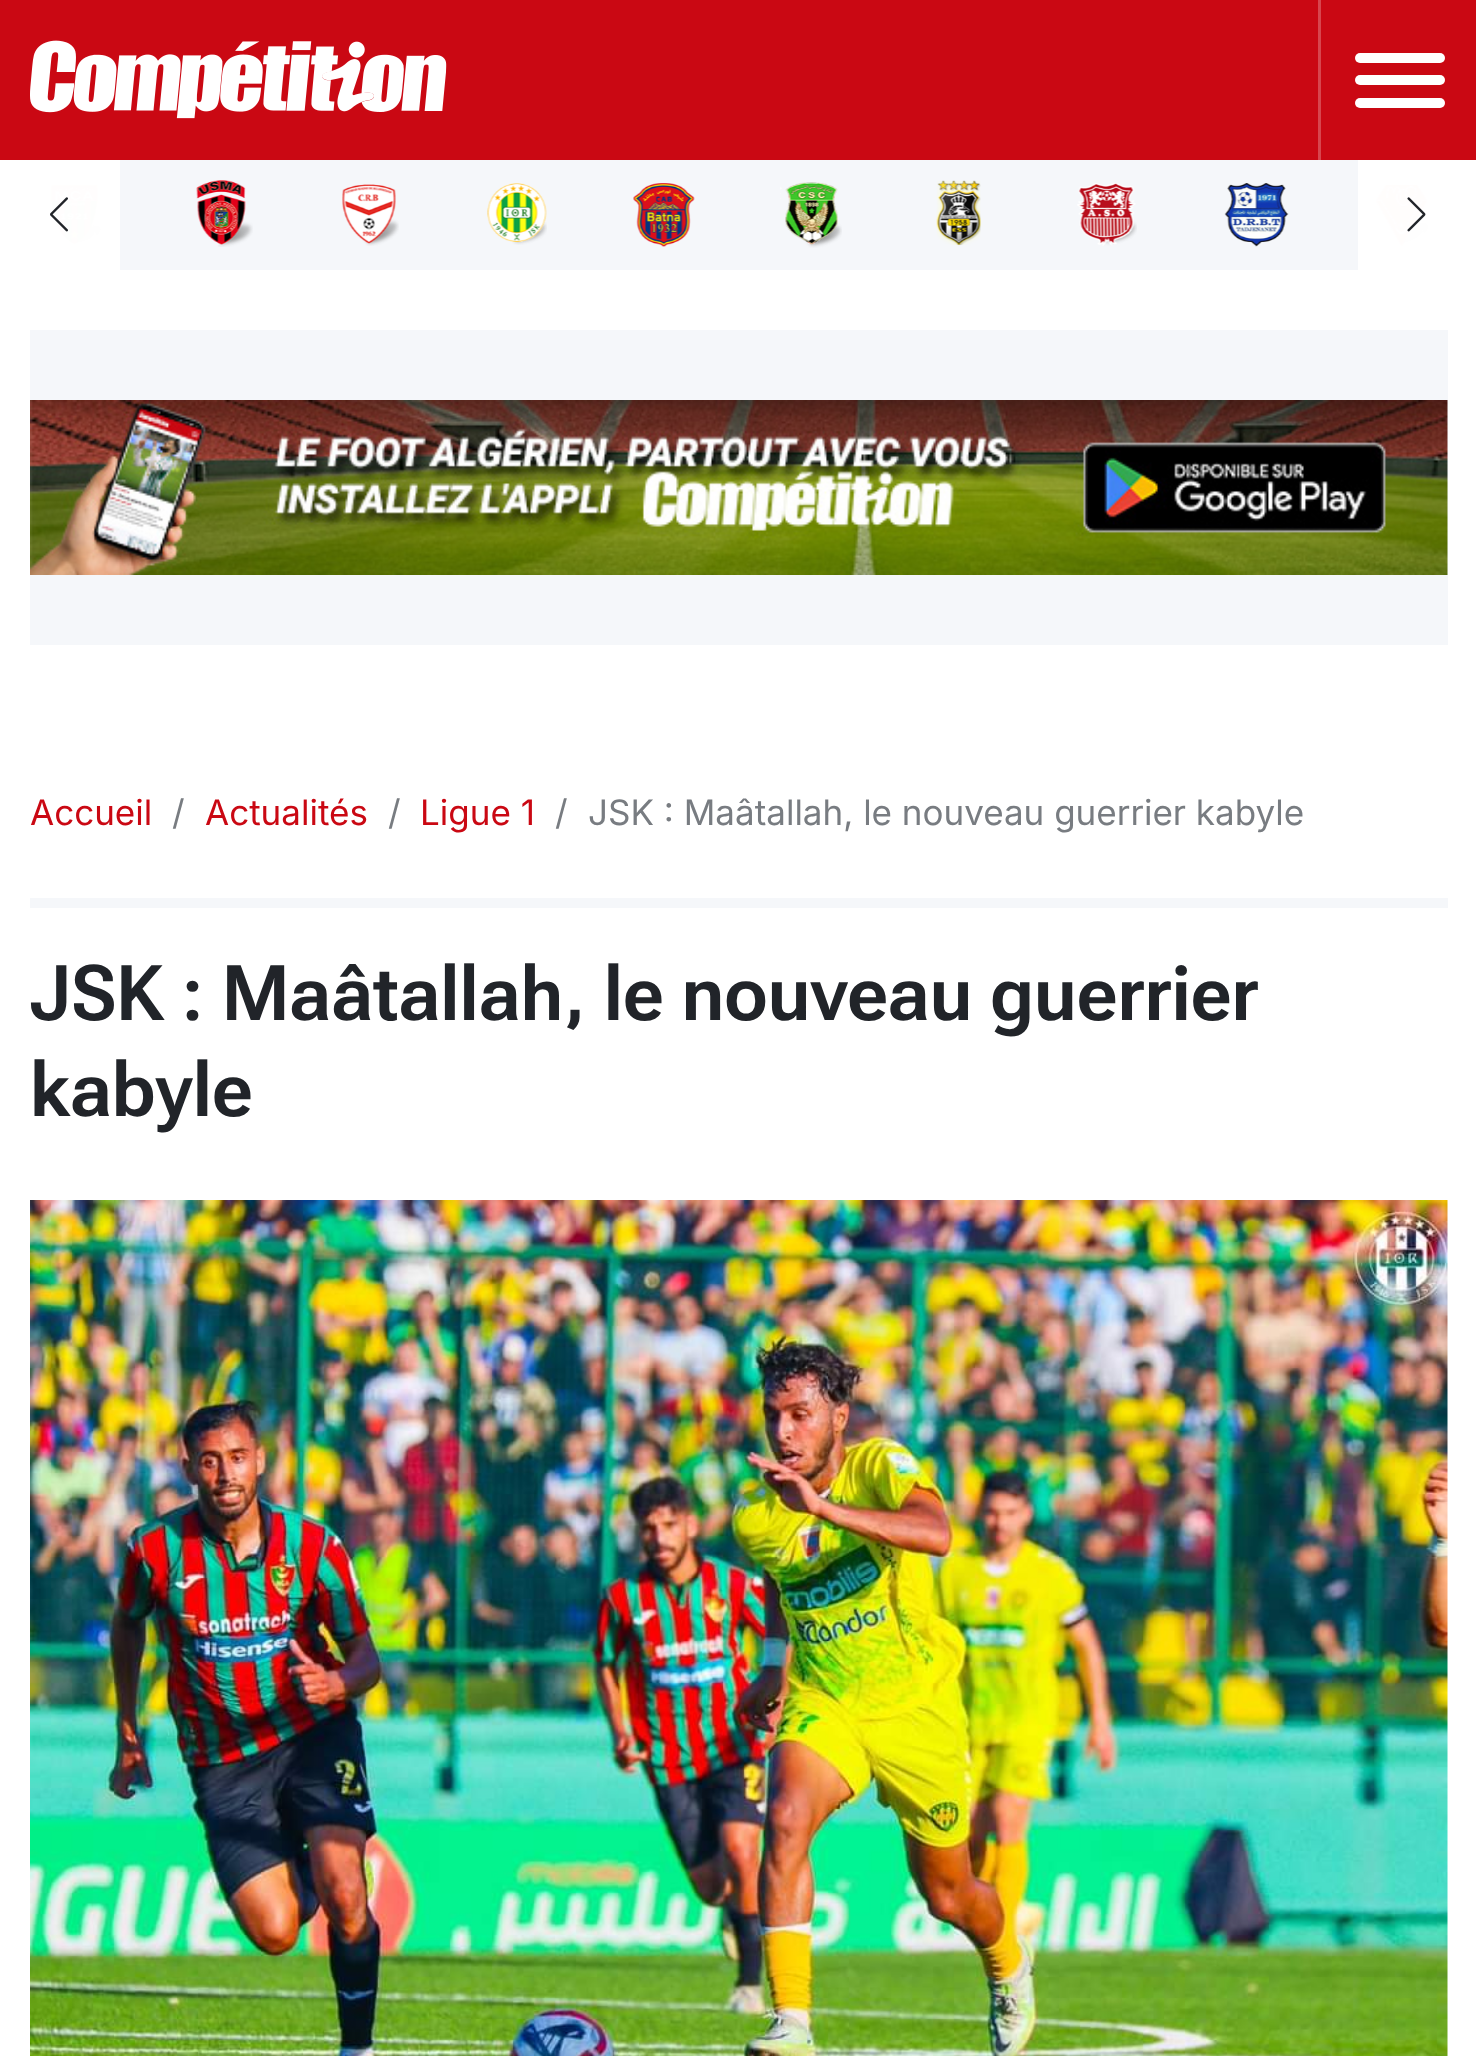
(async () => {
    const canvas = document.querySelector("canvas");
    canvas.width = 1476;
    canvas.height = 2056;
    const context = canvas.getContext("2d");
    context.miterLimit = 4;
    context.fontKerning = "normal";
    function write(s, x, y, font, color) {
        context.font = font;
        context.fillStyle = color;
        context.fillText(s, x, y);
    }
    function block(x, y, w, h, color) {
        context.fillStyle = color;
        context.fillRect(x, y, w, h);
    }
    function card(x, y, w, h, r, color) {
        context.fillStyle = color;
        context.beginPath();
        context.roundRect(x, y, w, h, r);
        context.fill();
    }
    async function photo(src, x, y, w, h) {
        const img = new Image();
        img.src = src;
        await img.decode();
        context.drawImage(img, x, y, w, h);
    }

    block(0, 0, 1476, 2056, "rgb(255, 255, 255)");
    block(0, 0, 1476, 160, "rgb(202, 8, 19)");
    await photo("media/1.png", 30, 40, 417, 79);
    block(1318, 0, 3, 160, "rgb(215, 70, 78)");
    card(1355, 75, 90, 10, 5, "rgb(255, 255, 255)");
    card(1355, 53, 90, 10, 5, "rgb(255, 255, 255)");
    card(1355, 98, 90, 10, 5, "rgb(255, 255, 255)");
    block(120, 160, 1238, 110, "rgb(245, 247, 250)");
    await photo("media/2.png", 50, 185, 54, 61);
    await photo("media/3.png", 196, 180, 57, 67);
    await photo("media/4.png", 342, 184, 57, 62);
    await photo("media/5.png", 487, 183, 60, 62);
    await photo("media/6.png", 633, 183, 62, 64);
    await photo("media/7.png", 780, 182, 62, 66);
    await photo("media/8.png", 936, 180, 45, 66);
    await photo("media/9.png", 1077, 183, 60, 63);
    await photo("media/10.png", 1224, 183, 65, 64);
    await photo("media/11.png", 1375, 185, 57, 62);
    await photo("media/12.png", 50, 197, 18, 35);
    await photo("media/13.png", 1407, 197, 19, 35);
    block(30, 330, 1418, 315, "rgb(245, 247, 250)");
    await photo("media/14.png", 30, 400, 1418, 175);
    write("Accueil", 30, 825, "35px Inter", "rgb(202, 8, 19)");
    write("/", 172, 825, "35px Inter", "rgb(120, 124, 129)");
    write("Actualités", 205, 825, "35px Inter", "rgb(202, 8, 19)");
    write("/", 388, 825, "35px Inter", "rgb(120, 124, 129)");
    write("Ligue 1", 420, 825, "35px Inter", "rgb(202, 8, 19)");
    write("/", 555, 825, "35px Inter", "rgb(120, 124, 129)");
    write("JSK : Maâtallah, le nouveau guerrier kabyle", 588, 825, "35px Inter", "rgb(120, 124, 129)");
    block(30, 898, 1418, 10, "rgb(245, 247, 250)");
    write("JSK : Maâtallah, le nouveau guerrier", 30, 1020, "600 77.2px Roboto Flex", "rgb(33, 36, 41)");
    write("kabyle", 30, 1116, "600 77.2px Roboto Flex", "rgb(33, 36, 41)");
    await photo("media/15.png", 30, 1200, 1418, 856);
})();
